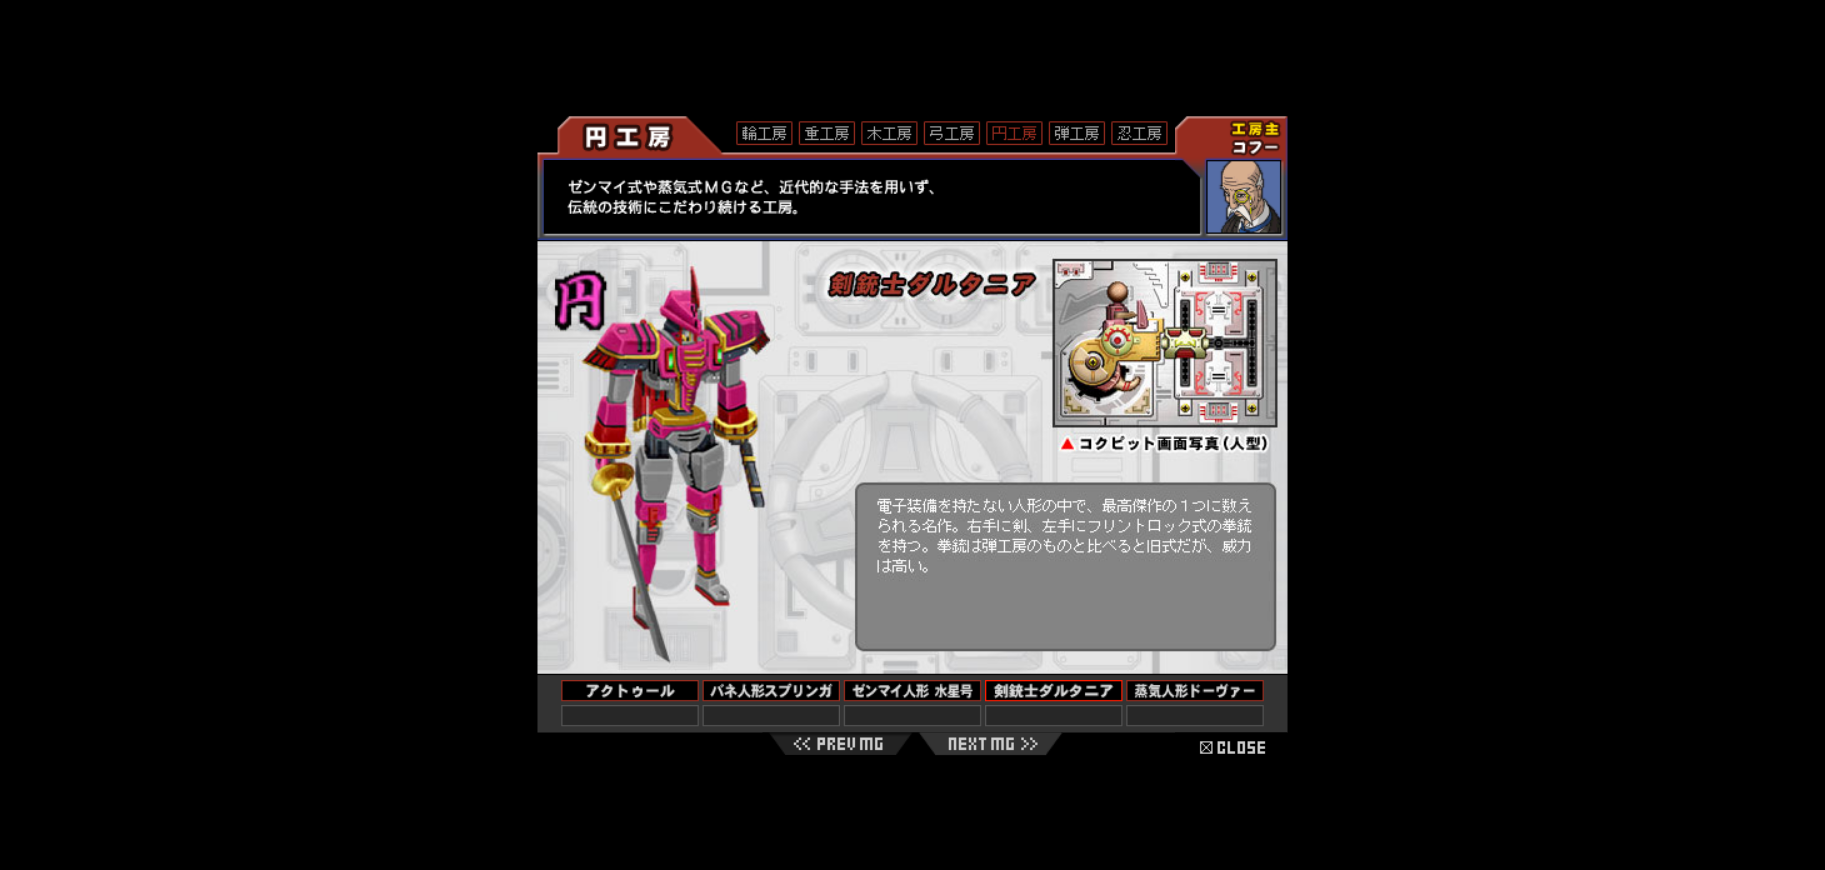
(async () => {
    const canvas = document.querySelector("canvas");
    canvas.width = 1825;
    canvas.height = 870;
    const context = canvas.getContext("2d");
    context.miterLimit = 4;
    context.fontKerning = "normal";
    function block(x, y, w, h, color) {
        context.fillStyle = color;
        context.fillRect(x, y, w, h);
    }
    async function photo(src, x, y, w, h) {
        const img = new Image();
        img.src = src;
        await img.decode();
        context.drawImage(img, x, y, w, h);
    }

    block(0, 0, 1825, 870, "rgb(0, 0, 0)");
    await photo("media/1.png", 537, 116, 188, 44);
    await photo("media/2.png", 725, 121, 450, 39);
    await photo("media/3.png", 1175, 116, 113, 125);
    await photo("media/4.png", 537, 160, 638, 81);
    await photo("media/5.png", 537, 241, 751, 433);
    await photo("media/6.png", 537, 674, 751, 59);
    await photo("media/7.png", 561, 680, 138, 22);
    await photo("media/8.png", 702, 680, 138, 22);
    await photo("media/9.png", 843, 680, 139, 22);
    await photo("media/10.png", 985, 680, 138, 22);
    await photo("media/11.png", 1126, 680, 138, 22);
    await photo("media/12.png", 561, 705, 138, 22);
    await photo("media/13.png", 702, 705, 138, 22);
    await photo("media/14.png", 843, 705, 139, 22);
    await photo("media/15.png", 985, 705, 138, 22);
    await photo("media/12.png", 1126, 705, 138, 22);
    await photo("media/16.png", 762, 732, 151, 23);
    await photo("media/17.png", 912, 732, 151, 24);
    await photo("media/18.png", 1175, 732, 112, 22);
})();
